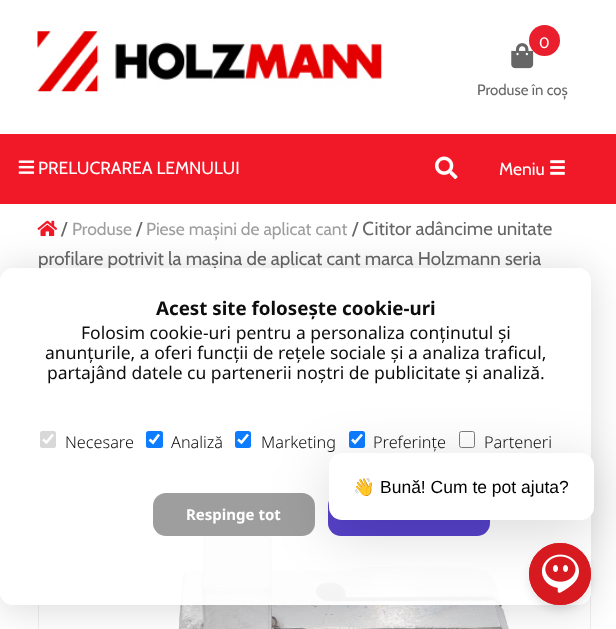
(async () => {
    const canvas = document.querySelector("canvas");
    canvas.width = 616;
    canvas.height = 629;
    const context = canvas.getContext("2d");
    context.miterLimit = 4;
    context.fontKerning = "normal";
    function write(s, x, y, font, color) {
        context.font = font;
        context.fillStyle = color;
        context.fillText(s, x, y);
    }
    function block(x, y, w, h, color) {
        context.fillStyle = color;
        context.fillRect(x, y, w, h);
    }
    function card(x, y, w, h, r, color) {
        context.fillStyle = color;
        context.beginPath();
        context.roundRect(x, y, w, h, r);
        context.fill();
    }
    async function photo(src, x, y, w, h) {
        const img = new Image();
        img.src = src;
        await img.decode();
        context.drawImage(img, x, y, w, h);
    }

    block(0, 0, 616, 629, "rgb(255, 255, 255)");
    await photo("media/1.png", 37, 31, 345, 61);
    await photo("media/2.png", 511, 43, 23, 26);
    context.fillStyle = "rgb(233, 31, 45)";
    context.beginPath();
    context.arc(544.5, 40.5, 15.5, 0, Math.PI * 2);
    context.fill();
    write("0", 539, 48, "15px Cabin", "rgb(255, 255, 255)");
    write("Produse în coș", 477, 95, "15px Cabin", "rgb(102, 102, 102)");
    block(0, 134, 616, 70, "rgb(241, 25, 40)");
    await photo("media/3.png", 18, 160, 17, 14);
    write("PRELUCRAREA LEMNULUI", 38, 174, "17.5px Cabin", "rgb(255, 255, 255)");
    await photo("media/4.png", 435, 156, 23, 23);
    write("Meniu", 499, 175, "17.5px Cabin", "rgb(255, 255, 255)");
    await photo("media/5.png", 550, 160, 15, 15);
    await photo("media/6.png", 37, 220, 21, 17);
    write("/", 61, 235, "18.75px Cabin", "rgb(102, 102, 102)");
    write("Produse", 72, 235, "17.5px Cabin", "rgb(158, 158, 158)");
    write("/", 136, 235, "18.75px Cabin", "rgb(102, 102, 102)");
    write("Piese mașini de aplicat cant", 146, 235, "17.5px Cabin", "rgb(158, 158, 158)");
    write("/ Cititor adâncime unitate", 352, 235, "18.75px Cabin", "rgb(102, 102, 102)");
    write("profilare potrivit la mașina de aplicat cant marca Holzmann seria", 38, 265, "18.75px Cabin", "rgb(102, 102, 102)");
    context.strokeStyle = "rgb(238, 238, 238)";
    context.strokeRect(38.5, 351.5, 552, 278);
    await photo("media/7.png", 179, 534, 330, 95);
    context.save();
    context.beginPath();
    context.moveTo(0, 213);
    context.lineTo(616, 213);
    context.lineTo(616, 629);
    context.lineTo(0, 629);
    context.closePath();
    context.moveTo(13, 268);
    context.lineTo(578, 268);
    context.bezierCurveTo(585, 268, 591, 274, 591, 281);
    context.lineTo(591, 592);
    context.bezierCurveTo(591, 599, 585, 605, 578, 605);
    context.lineTo(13, 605);
    context.bezierCurveTo(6, 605, 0, 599, 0, 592);
    context.lineTo(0, 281);
    context.bezierCurveTo(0, 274, 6, 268, 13, 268);
    context.closePath();
    context.clip("evenodd");
    context.fillStyle = "rgba(0, 0, 0, 0.15)";
    context.filter = "blur(19px)";
    context.beginPath();
    context.roundRect(0, 271, 591, 338, 13);
    context.fill();
    context.filter = "none";
    context.restore();
    card(0, 268, 591, 337, 13, "rgba(255, 255, 255, 0.95)");
    write("Acest site folosește cookie-uri", 156, 315, "bold 18.75px Noto Sans", "rgb(13, 13, 13)");
    write("Folosim cookie-uri pentru a personaliza conținutul și", 81, 339, "17.5px Noto Sans", "rgb(13, 13, 13)");
    write("anunțurile, a oferi funcții de rețele sociale și a analiza traficul,", 45, 359, "17.5px Noto Sans", "rgb(13, 13, 13)");
    write("partajând datele cu partenerii noștri de publicitate și analiză.", 47, 379, "17.5px Noto Sans", "rgb(13, 13, 13)");
    card(40, 431, 16, 17, 2.5, "rgb(216, 216, 216)");
    context.beginPath();
    context.moveTo(43, 439.5);
    context.lineTo(46.5, 442.5);
    context.lineTo(53, 434.5);
    context.strokeStyle = "rgb(255, 255, 255)";
    context.lineWidth = 2.6;
    context.stroke();
    write("Necesare", 65, 448, "300 16.25px Noto Sans", "rgb(13, 13, 13)");
    card(146, 431, 17, 17, 2.5, "rgb(13, 124, 255)");
    context.beginPath();
    context.moveTo(149.5, 439.5);
    context.lineTo(153, 442.5);
    context.lineTo(159, 434.5);
    context.stroke();
    write("Analiză", 171, 448, "300 16.25px Noto Sans", "rgb(13, 13, 13)");
    card(235, 431, 16, 17, 2.5, "rgb(13, 124, 255)");
    context.beginPath();
    context.moveTo(238, 439.5);
    context.lineTo(241.5, 442.5);
    context.lineTo(248, 434.5);
    context.stroke();
    write("Marketing", 261, 448, "300 16.25px Noto Sans", "rgb(13, 13, 13)");
    card(349, 431, 16, 17, 2.5, "rgb(13, 124, 255)");
    context.beginPath();
    context.moveTo(352, 439.5);
    context.lineTo(355, 442.5);
    context.lineTo(362, 434.5);
    context.stroke();
    write("Preferințe", 373, 448, "300 16.25px Noto Sans", "rgb(13, 13, 13)");
    context.beginPath();
    context.roundRect(459.5, 431.5, 15, 16, 2);
    context.strokeStyle = "rgb(125, 125, 125)";
    context.lineWidth = 1;
    context.stroke();
    write("Parteneri", 484, 448, "300 16.25px Noto Sans", "rgb(13, 13, 13)");
    card(153, 493, 162, 43, 13, "rgba(153, 153, 153, 0.95)");
    write("Respinge tot", 186, 520, "bold 15px Noto Sans", "rgb(255, 255, 255)");
    card(328, 493, 162, 43, 13, "rgb(87, 66, 202)");
    context.fillStyle = "rgba(0, 0, 0, 0.15)";
    context.filter = "blur(28px)";
    context.beginPath();
    context.roundRect(329, 465, 265, 68, 13);
    context.fill();
    context.filter = "none";
    card(329, 453, 265, 67, 13, "rgb(255, 255, 255)");
    write("👋", 353, 493, "17.5px Noto Color Emoji", "rgb(0, 0, 0)");
    write("Bună! Cum te pot ajuta?", 380, 493, "17.5px Liberation Sans", "rgb(0, 0, 0)");
    context.fillStyle = "rgba(0, 0, 0, 0.1)";
    context.filter = "blur(4px)";
    context.beginPath();
    context.roundRect(529, 548, 62, 62, 31);
    context.fill();
    context.filter = "none";
    context.fillStyle = "rgb(215, 26, 32)";
    context.beginPath();
    context.arc(560, 574, 31, 0, Math.PI * 2);
    context.fill();
    await photo("media/8.png", 541, 554, 38, 39);
    context.beginPath();
    context.arc(560, 574, 28, 0, Math.PI * 2);
    context.strokeStyle = "rgb(215, 26, 32)";
    context.lineWidth = 6;
    context.stroke();
})();
